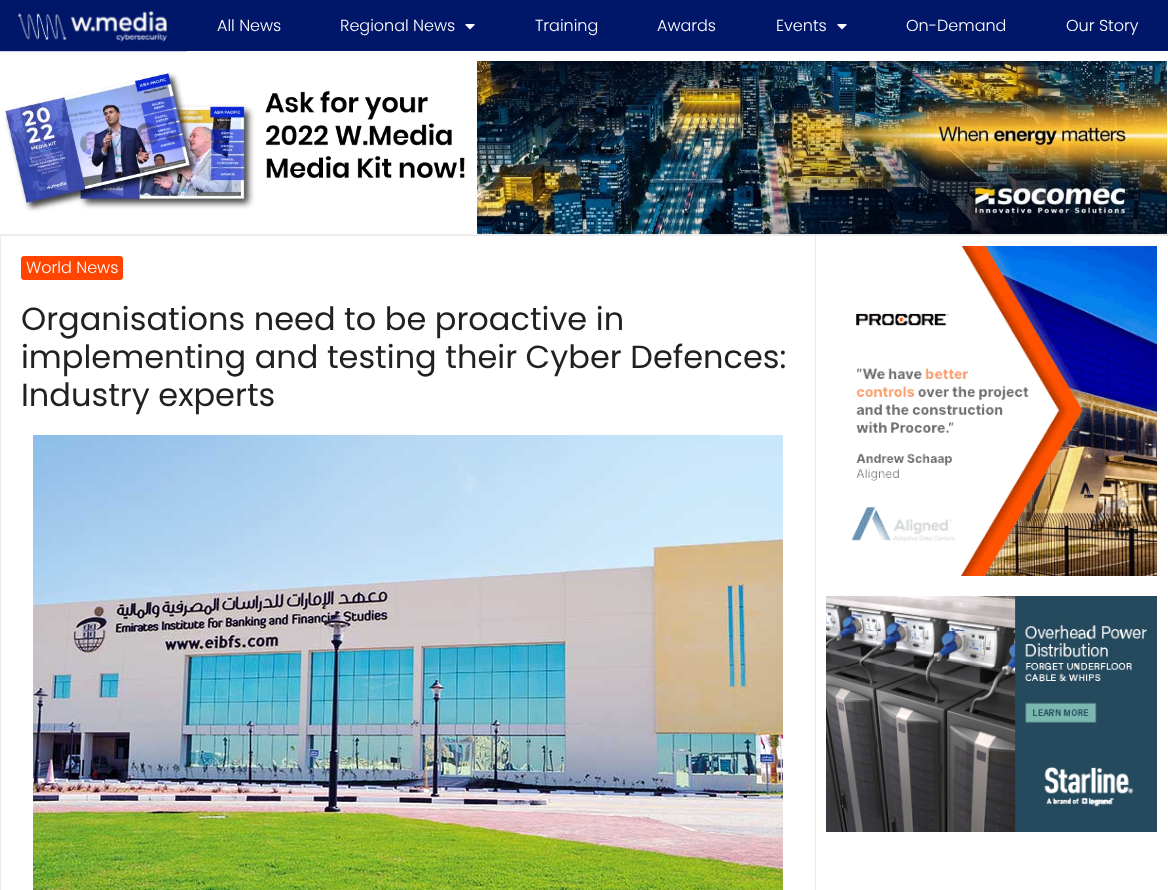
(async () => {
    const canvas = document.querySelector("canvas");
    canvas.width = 1168;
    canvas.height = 890;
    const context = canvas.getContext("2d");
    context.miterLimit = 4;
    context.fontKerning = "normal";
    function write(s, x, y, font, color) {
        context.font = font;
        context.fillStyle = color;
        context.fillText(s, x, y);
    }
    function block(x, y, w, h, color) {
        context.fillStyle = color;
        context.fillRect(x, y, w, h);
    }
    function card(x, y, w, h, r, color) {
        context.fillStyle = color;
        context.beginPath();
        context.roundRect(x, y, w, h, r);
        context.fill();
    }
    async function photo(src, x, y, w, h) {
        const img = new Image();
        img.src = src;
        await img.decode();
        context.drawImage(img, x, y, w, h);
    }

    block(0, 0, 1168, 890, "rgb(255, 255, 255)");
    block(0, 0, 1168, 51, "rgb(0, 22, 105)");
    await photo("media/1.png", 0, 10, 187, 42);
    write("All News", 217, 31, "300 16px Poppins", "rgb(255, 255, 255)");
    write("Regional News", 340, 31, "300 16px Poppins", "rgb(255, 255, 255)");
    await photo("media/2.png", 465, 24, 10, 6);
    write("Training", 535, 31, "300 16px Poppins", "rgb(255, 255, 255)");
    write("Awards", 657, 31, "300 16px Poppins", "rgb(255, 255, 255)");
    write("Events", 776, 31, "300 16px Poppins", "rgb(255, 255, 255)");
    await photo("media/2.png", 837, 24, 10, 6);
    write("On-Demand", 906, 31, "300 16px Poppins", "rgb(255, 255, 255)");
    write("Our Story", 1066, 31, "300 16px Poppins", "rgb(255, 255, 255)");
    block(0, 234, 1168, 2, "rgb(237, 237, 237)");
    await photo("media/3.png", 5, 73, 460, 139);
    await photo("media/4.png", 477, 61, 690, 173);
    block(815, 236, 1, 654, "rgb(237, 237, 237)");
    block(0, 236, 1, 654, "rgb(237, 237, 237)");
    card(21, 256, 102, 24, 3, "rgb(255, 69, 0)");
    write("World News", 26, 273, "300 16px Poppins", "rgb(255, 255, 255)");
    write("Organisations need to be proactive in", 21, 330, "32px Poppins", "rgb(33, 33, 33)");
    write("implementing and testing their Cyber Defences:", 21, 368, "32px Poppins", "rgb(33, 33, 33)");
    write("Industry experts", 21, 406, "32px Poppins", "rgb(33, 33, 33)");
    await photo("media/5.png", 33, 435, 750, 455);
    await photo("media/6.png", 851, 246, 306, 330);
    await photo("media/7.png", 826, 596, 331, 236);
})();
